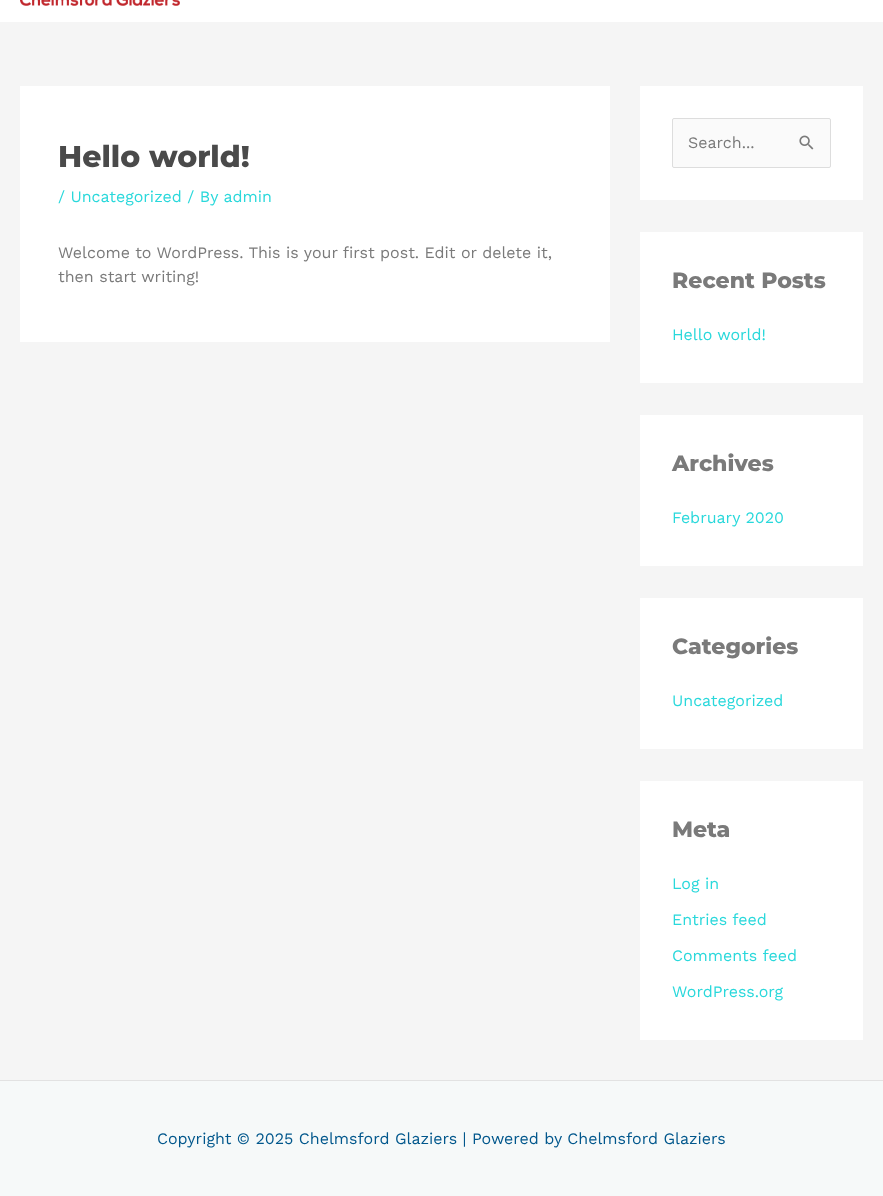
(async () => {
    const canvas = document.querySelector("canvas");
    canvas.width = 883;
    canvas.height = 1196;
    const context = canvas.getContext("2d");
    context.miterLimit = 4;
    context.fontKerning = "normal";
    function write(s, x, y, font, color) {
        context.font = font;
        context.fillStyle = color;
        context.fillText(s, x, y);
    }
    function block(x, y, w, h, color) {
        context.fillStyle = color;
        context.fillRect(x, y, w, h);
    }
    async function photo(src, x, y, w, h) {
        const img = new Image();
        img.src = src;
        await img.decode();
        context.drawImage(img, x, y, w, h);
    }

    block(0, 0, 883, 1196, "rgb(245, 245, 245)");
    block(0, 0, 883, 22, "rgb(255, 255, 255)");
    await photo("media/1.png", 20, 0, 160, 6);
    block(20, 86, 590, 256, "rgb(255, 255, 255)");
    write("Hello world!", 58, 167, "100 30px Montserrat", "rgb(74, 74, 74)");
    write("/ Uncategorized / By admin", 58, 202, "16px Work Sans", "rgb(41, 216, 219)");
    write("Welcome to WordPress. This is your first post. Edit or delete it,", 58, 258, "16px Work Sans", "rgb(122, 122, 122)");
    write("then start writing!", 58, 282, "16px Work Sans", "rgb(122, 122, 122)");
    block(640, 86, 223, 114, "rgb(255, 255, 255)");
    context.fillStyle = "rgb(250, 250, 250)";
    context.beginPath();
    context.roundRect(672.5, 118.5, 158, 49, 1.5);
    context.fill();
    context.strokeStyle = "rgb(221, 221, 221)";
    context.stroke();
    write("Search...", 688, 148, "16px Work Sans", "rgb(122, 122, 122)");
    await photo("media/2.png", 799, 135, 15, 15);
    block(640, 232, 223, 151, "rgb(255, 255, 255)");
    write("Recent Posts", 672, 288, "100 22px Montserrat", "rgb(122, 122, 122)");
    write("Hello world!", 672, 340, "16px Work Sans", "rgb(41, 216, 219)");
    block(640, 415, 223, 151, "rgb(255, 255, 255)");
    write("Archives", 672, 471, "100 22px Montserrat", "rgb(122, 122, 122)");
    write("February 2020", 672, 523, "16px Work Sans", "rgb(41, 216, 219)");
    block(640, 598, 223, 151, "rgb(255, 255, 255)");
    write("Categories", 672, 654, "100 22px Montserrat", "rgb(122, 122, 122)");
    write("Uncategorized", 672, 706, "16px Work Sans", "rgb(41, 216, 219)");
    block(640, 781, 223, 259, "rgb(255, 255, 255)");
    write("Meta", 672, 837, "100 22px Montserrat", "rgb(122, 122, 122)");
    write("Log in", 672, 889, "16px Work Sans", "rgb(41, 216, 219)");
    write("Entries feed", 672, 925, "16px Work Sans", "rgb(41, 216, 219)");
    write("Comments feed", 672, 961, "16px Work Sans", "rgb(41, 216, 219)");
    write("WordPress.org", 672, 997, "16px Work Sans", "rgb(41, 216, 219)");
    block(0, 1080, 883, 1, "rgb(226, 226, 226)");
    block(0, 1081, 883, 115, "rgb(246, 249, 249)");
    write("Copyright © 2025 Chelmsford Glaziers | Powered by Chelmsford Glaziers", 157, 1144, "16px Work Sans", "rgb(1, 87, 140)");
})();
